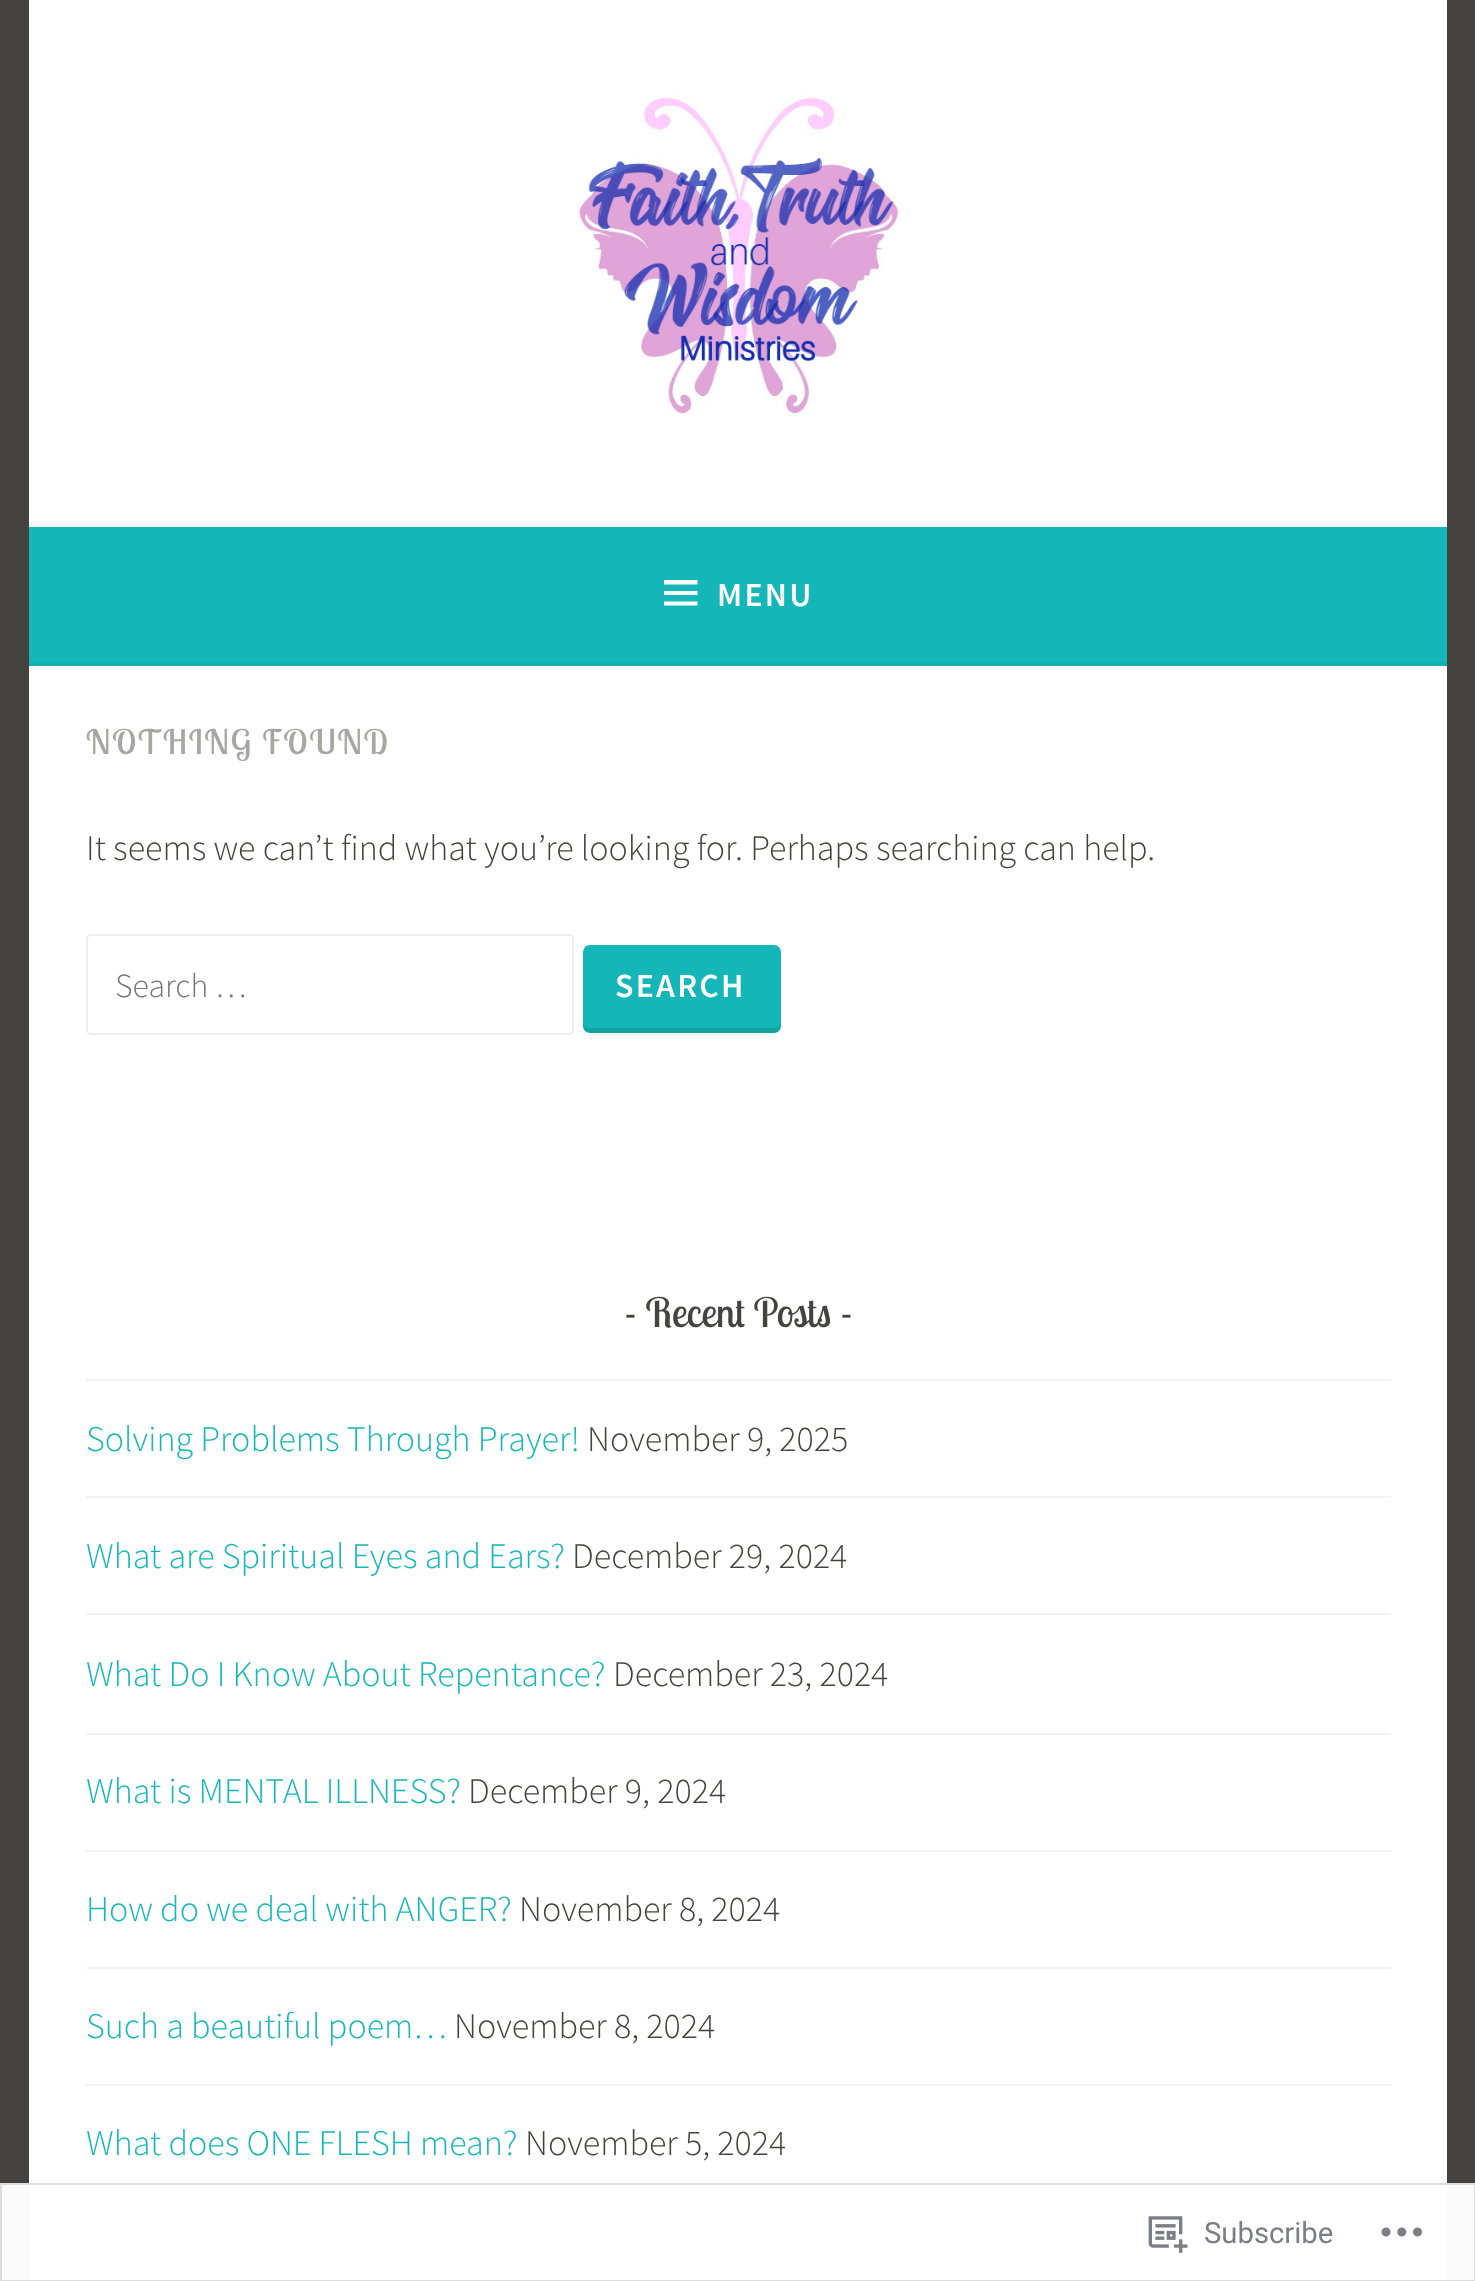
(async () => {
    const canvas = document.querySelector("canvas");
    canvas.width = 1475;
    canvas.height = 2281;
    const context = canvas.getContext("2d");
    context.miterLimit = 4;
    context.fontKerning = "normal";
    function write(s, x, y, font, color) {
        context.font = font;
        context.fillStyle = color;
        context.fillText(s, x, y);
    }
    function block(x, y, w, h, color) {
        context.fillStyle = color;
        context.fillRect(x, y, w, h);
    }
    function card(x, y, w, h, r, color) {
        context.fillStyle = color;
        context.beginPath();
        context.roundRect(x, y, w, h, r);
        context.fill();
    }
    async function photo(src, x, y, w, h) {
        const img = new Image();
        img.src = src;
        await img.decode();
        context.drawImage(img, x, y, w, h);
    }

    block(0, 0, 1475, 2281, "rgb(68, 67, 64)");
    block(0, 2183, 1475, 98, "rgb(251, 251, 251)");
    block(29, 0, 1418, 527, "rgb(255, 255, 255)");
    await photo("media/1.png", 578, 94, 327, 323);
    block(29, 527, 1418, 135, "rgb(21, 182, 184)");
    block(29, 662, 1418, 4, "rgb(20, 177, 178)");
    context.fillStyle = "rgb(255, 255, 255)";
    context.beginPath();
    context.moveTo(664, 605.5);
    context.lineTo(664, 601.5);
    context.lineTo(697.5, 601.5);
    context.lineTo(697.5, 605.5);
    context.closePath();
    context.moveTo(664, 580);
    context.lineTo(697.5, 580);
    context.lineTo(697.5, 584.5);
    context.lineTo(664, 584.5);
    context.closePath();
    context.moveTo(664, 595);
    context.lineTo(664, 591);
    context.lineTo(697.5, 591);
    context.lineTo(697.5, 595);
    context.closePath();
    context.fill();
    context.letterSpacing = "2.25px";
    write("MENU", 717, 606, "600 33.75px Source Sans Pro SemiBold", "rgb(255, 255, 255)");
    block(29, 666, 1418, 1615, "rgb(255, 255, 255)");
    write("NOTHING FOUND", 86, 754, "33.75px Lobster Two", "rgb(168, 166, 161)");
    context.letterSpacing = "0px";
    write("It seems we can’t find what you’re looking for. Perhaps searching can help.", 86, 860, "300 36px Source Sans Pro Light", "rgb(68, 67, 64)");
    context.beginPath();
    context.roundRect(87, 935, 486, 99, 4);
    context.strokeStyle = "rgb(238, 238, 238)";
    context.lineWidth = 2;
    context.stroke();
    write("Search …", 115, 997, "300 33.75px Source Sans Pro Light", "rgb(117, 117, 117)");
    card(583, 945, 198, 88, 7, "rgb(21, 182, 184)");
    context.fillStyle = "rgba(0, 0, 0, 0.1)";
    context.beginPath();
    context.moveTo(583, 1022);
    context.lineTo(583, 1026);
    context.bezierCurveTo(583, 1030, 586, 1033, 590, 1033);
    context.lineTo(774, 1033);
    context.bezierCurveTo(778, 1033, 781, 1030, 781, 1026);
    context.lineTo(781, 1022);
    context.bezierCurveTo(781, 1025, 778, 1028, 774, 1028);
    context.lineTo(590, 1028);
    context.bezierCurveTo(586, 1028, 583, 1025, 583, 1022);
    context.closePath();
    context.fill();
    context.letterSpacing = "2.25px";
    write("SEARCH", 615, 997, "600 33.75px Source Sans Pro SemiBold", "rgb(255, 255, 255)");
    context.letterSpacing = "0px";
    write("- Recent Posts -", 624, 1327, "40.5px Lobster Two", "rgb(68, 67, 64)");
    block(86, 1379, 1305, 2, "rgb(242, 242, 242)");
    write("Solving Problems Through Prayer!", 86, 1451, "300 36px Source Sans Pro Light", "rgb(21, 182, 184)");
    write("November 9, 2025", 587, 1451, "300 36px Source Sans Pro Light", "rgb(68, 67, 64)");
    block(86, 1496, 1305, 2, "rgb(242, 242, 242)");
    write("What are Spiritual Eyes and Ears?", 86, 1568, "300 36px Source Sans Pro Light", "rgb(21, 182, 184)");
    write("December 29, 2024", 572, 1568, "300 36px Source Sans Pro Light", "rgb(68, 67, 64)");
    block(86, 1613, 1305, 2, "rgb(242, 242, 242)");
    write("What Do I Know About Repentance?", 86, 1686, "300 36px Source Sans Pro Light", "rgb(21, 182, 184)");
    write("December 23, 2024", 613, 1686, "300 36px Source Sans Pro Light", "rgb(68, 67, 64)");
    block(86, 1733, 1305, 2, "rgb(242, 242, 242)");
    write("What is MENTAL ILLNESS?", 86, 1803, "300 36px Source Sans Pro Light", "rgb(21, 182, 184)");
    write("December 9, 2024", 468, 1803, "300 36px Source Sans Pro Light", "rgb(68, 67, 64)");
    block(86, 1850, 1305, 2, "rgb(242, 242, 242)");
    write("How do we deal with ANGER?", 86, 1921, "300 36px Source Sans Pro Light", "rgb(21, 182, 184)");
    write("November 8, 2024", 519, 1921, "300 36px Source Sans Pro Light", "rgb(68, 67, 64)");
    block(86, 1967, 1305, 2, "rgb(242, 242, 242)");
    write("Such a beautiful poem…", 86, 2038, "300 36px Source Sans Pro Light", "rgb(21, 182, 184)");
    write("November 8, 2024", 454, 2038, "300 36px Source Sans Pro Light", "rgb(68, 67, 64)");
    block(86, 2084, 1305, 2, "rgb(242, 242, 242)");
    write("What does ONE FLESH mean?", 86, 2155, "300 36px Source Sans Pro Light", "rgb(21, 182, 184)");
    write("November 5, 2024", 525, 2155, "300 36px Source Sans Pro Light", "rgb(68, 67, 64)");
    context.strokeStyle = "rgba(220, 220, 222, 0.98)";
    context.strokeRect(1, 2184, 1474, 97);
    await photo("media/2.png", 1148, 2216, 40, 37);
    write("Subscribe", 1204, 2243, "29.25px Roboto", "rgb(123, 127, 133)");
    await photo("media/3.png", 1381, 2227, 41, 10);
})();
